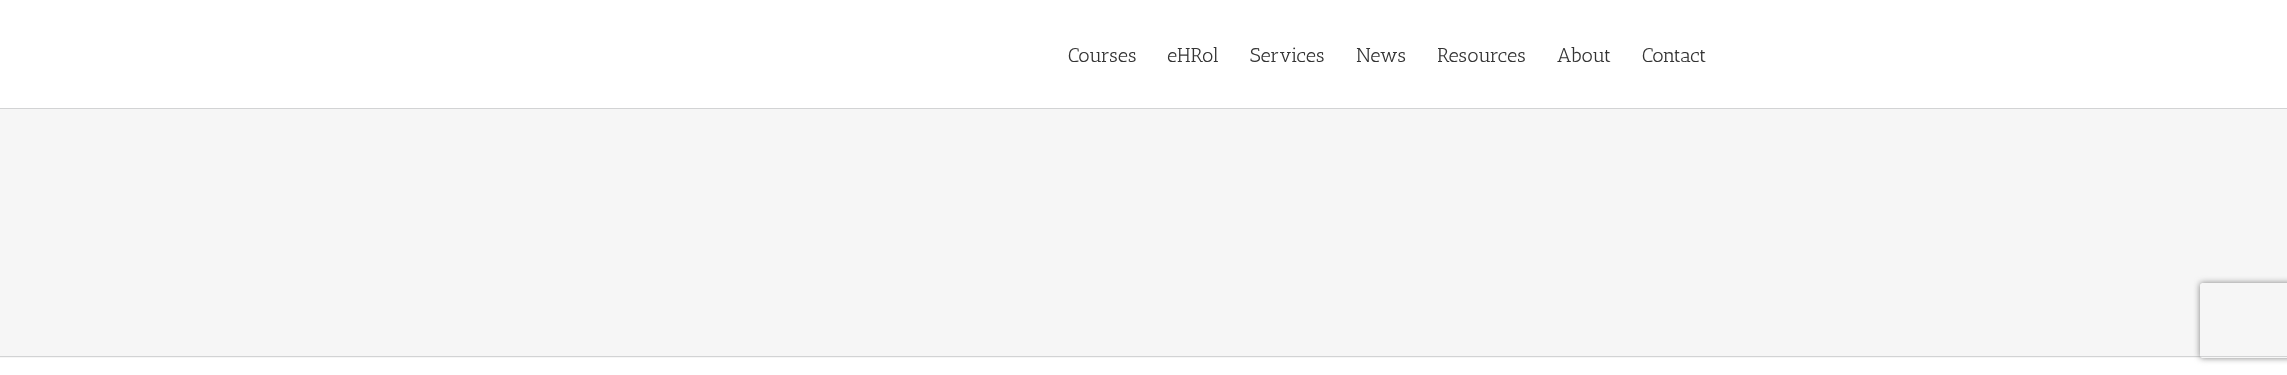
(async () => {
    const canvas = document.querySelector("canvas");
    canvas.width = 2287;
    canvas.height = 375;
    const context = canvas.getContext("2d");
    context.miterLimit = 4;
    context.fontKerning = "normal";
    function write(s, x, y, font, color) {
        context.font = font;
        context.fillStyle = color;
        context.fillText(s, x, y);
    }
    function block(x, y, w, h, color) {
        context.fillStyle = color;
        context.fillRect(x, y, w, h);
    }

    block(0, 0, 2287, 375, "rgb(255, 255, 255)");
    write("Courses", 1068, 62, "20px Antic Slab", "rgb(51, 51, 51)");
    write("eHRol", 1167, 62, "20px Antic Slab", "rgb(51, 51, 51)");
    write("Services", 1250, 62, "20px Antic Slab", "rgb(51, 51, 51)");
    write("News", 1356, 62, "20px Antic Slab", "rgb(51, 51, 51)");
    write("Resources", 1437, 62, "20px Antic Slab", "rgb(51, 51, 51)");
    write("About", 1557, 62, "20px Antic Slab", "rgb(51, 51, 51)");
    write("Contact", 1642, 62, "20px Antic Slab", "rgb(51, 51, 51)");
    block(0, 109, 2287, 249, "rgb(246, 246, 246)");
    block(0, 108, 2287, 1, "rgb(210, 211, 212)");
    block(0, 356, 2287, 1, "rgb(210, 211, 212)");
    context.save();
    context.beginPath();
    context.moveTo(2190, 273);
    context.lineTo(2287, 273);
    context.lineTo(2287, 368);
    context.lineTo(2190, 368);
    context.closePath();
    context.moveTo(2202.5, 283);
    context.lineTo(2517.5, 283);
    context.bezierCurveTo(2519, 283, 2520, 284, 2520, 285.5);
    context.lineTo(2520, 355.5);
    context.bezierCurveTo(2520, 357, 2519, 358, 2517.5, 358);
    context.lineTo(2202.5, 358);
    context.bezierCurveTo(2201, 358, 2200, 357, 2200, 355.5);
    context.lineTo(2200, 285.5);
    context.bezierCurveTo(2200, 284, 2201, 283, 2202.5, 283);
    context.closePath();
    context.clip("evenodd");
    context.fillStyle = "rgb(128, 128, 128)";
    context.filter = "blur(3px)";
    context.beginPath();
    context.roundRect(2200, 283, 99, 75, 2.5);
    context.fill();
    context.filter = "none";
    context.restore();
})();
